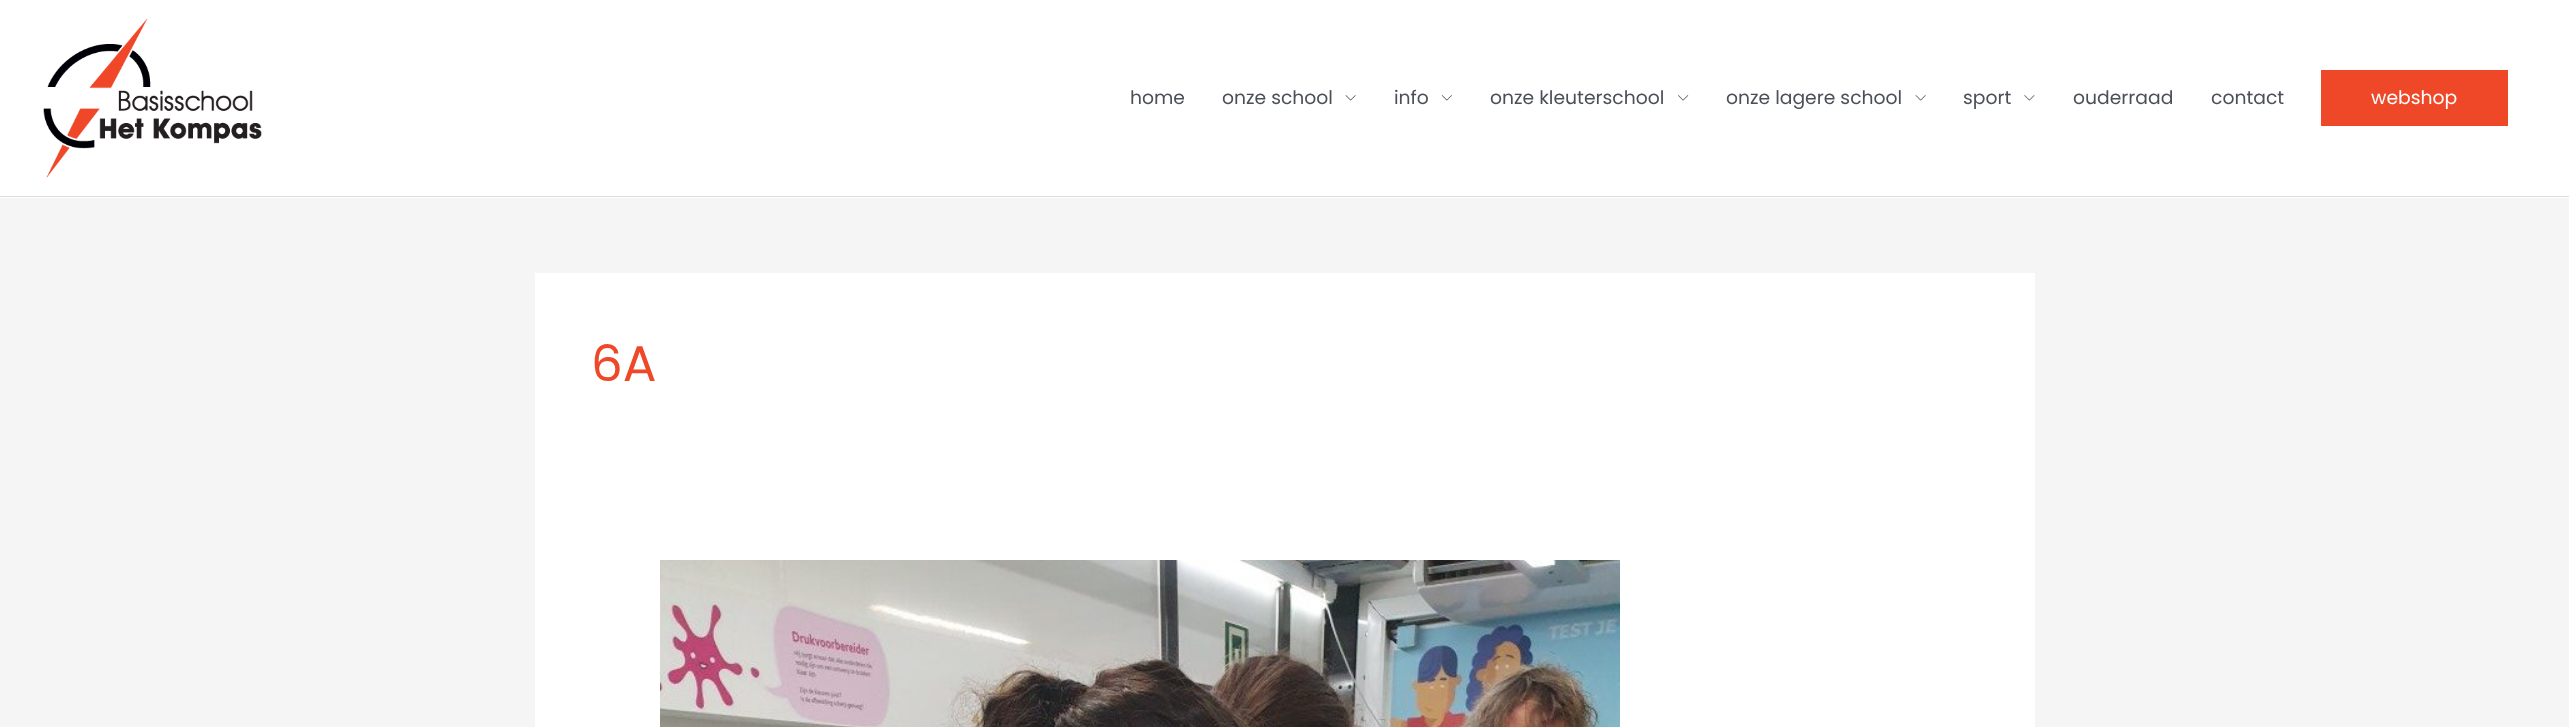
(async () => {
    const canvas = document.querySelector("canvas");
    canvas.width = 2569;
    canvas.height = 727;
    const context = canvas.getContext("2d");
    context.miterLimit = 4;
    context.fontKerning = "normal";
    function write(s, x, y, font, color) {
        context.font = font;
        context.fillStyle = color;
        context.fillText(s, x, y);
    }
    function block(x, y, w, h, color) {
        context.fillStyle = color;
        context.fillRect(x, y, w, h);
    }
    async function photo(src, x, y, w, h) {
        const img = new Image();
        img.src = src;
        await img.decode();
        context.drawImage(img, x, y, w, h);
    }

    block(0, 0, 2569, 727, "rgb(245, 245, 245)");
    block(0, 0, 2569, 198, "rgb(255, 255, 255)");
    block(0, 196, 2569, 1, "rgb(221, 221, 221)");
    await photo("media/1.png", 43, 18, 219, 160);
    write("home", 1130, 104, "18.75px Poppins", "rgb(75, 79, 88)");
    write("onze school", 1222, 104, "18.75px Poppins", "rgb(75, 79, 88)");
    await photo("media/2.png", 1345, 95, 11, 6);
    write("info", 1394, 104, "18.75px Poppins", "rgb(75, 79, 88)");
    await photo("media/3.png", 1441, 95, 11, 6);
    write("onze kleuterschool", 1490, 104, "18.75px Poppins", "rgb(75, 79, 88)");
    await photo("media/4.png", 1678, 95, 11, 6);
    write("onze lagere school", 1726, 104, "18.75px Poppins", "rgb(75, 79, 88)");
    await photo("media/2.png", 1915, 95, 11, 6);
    write("sport", 1963, 104, "18.75px Poppins", "rgb(75, 79, 88)");
    await photo("media/5.png", 2024, 95, 11, 6);
    write("ouderraad", 2073, 104, "18.75px Poppins", "rgb(75, 79, 88)");
    write("contact", 2211, 104, "18.75px Poppins", "rgb(75, 79, 88)");
    block(2321, 70, 187, 56, "rgb(239, 72, 41)");
    write("webshop", 2371, 104, "18.75px Poppins", "rgb(255, 255, 255)");
    block(535, 273, 1500, 454, "rgb(255, 255, 255)");
    write("6A", 591, 381, "50px Poppins", "rgb(239, 72, 41)");
    await photo("media/6.png", 660, 560, 960, 167);
})();
